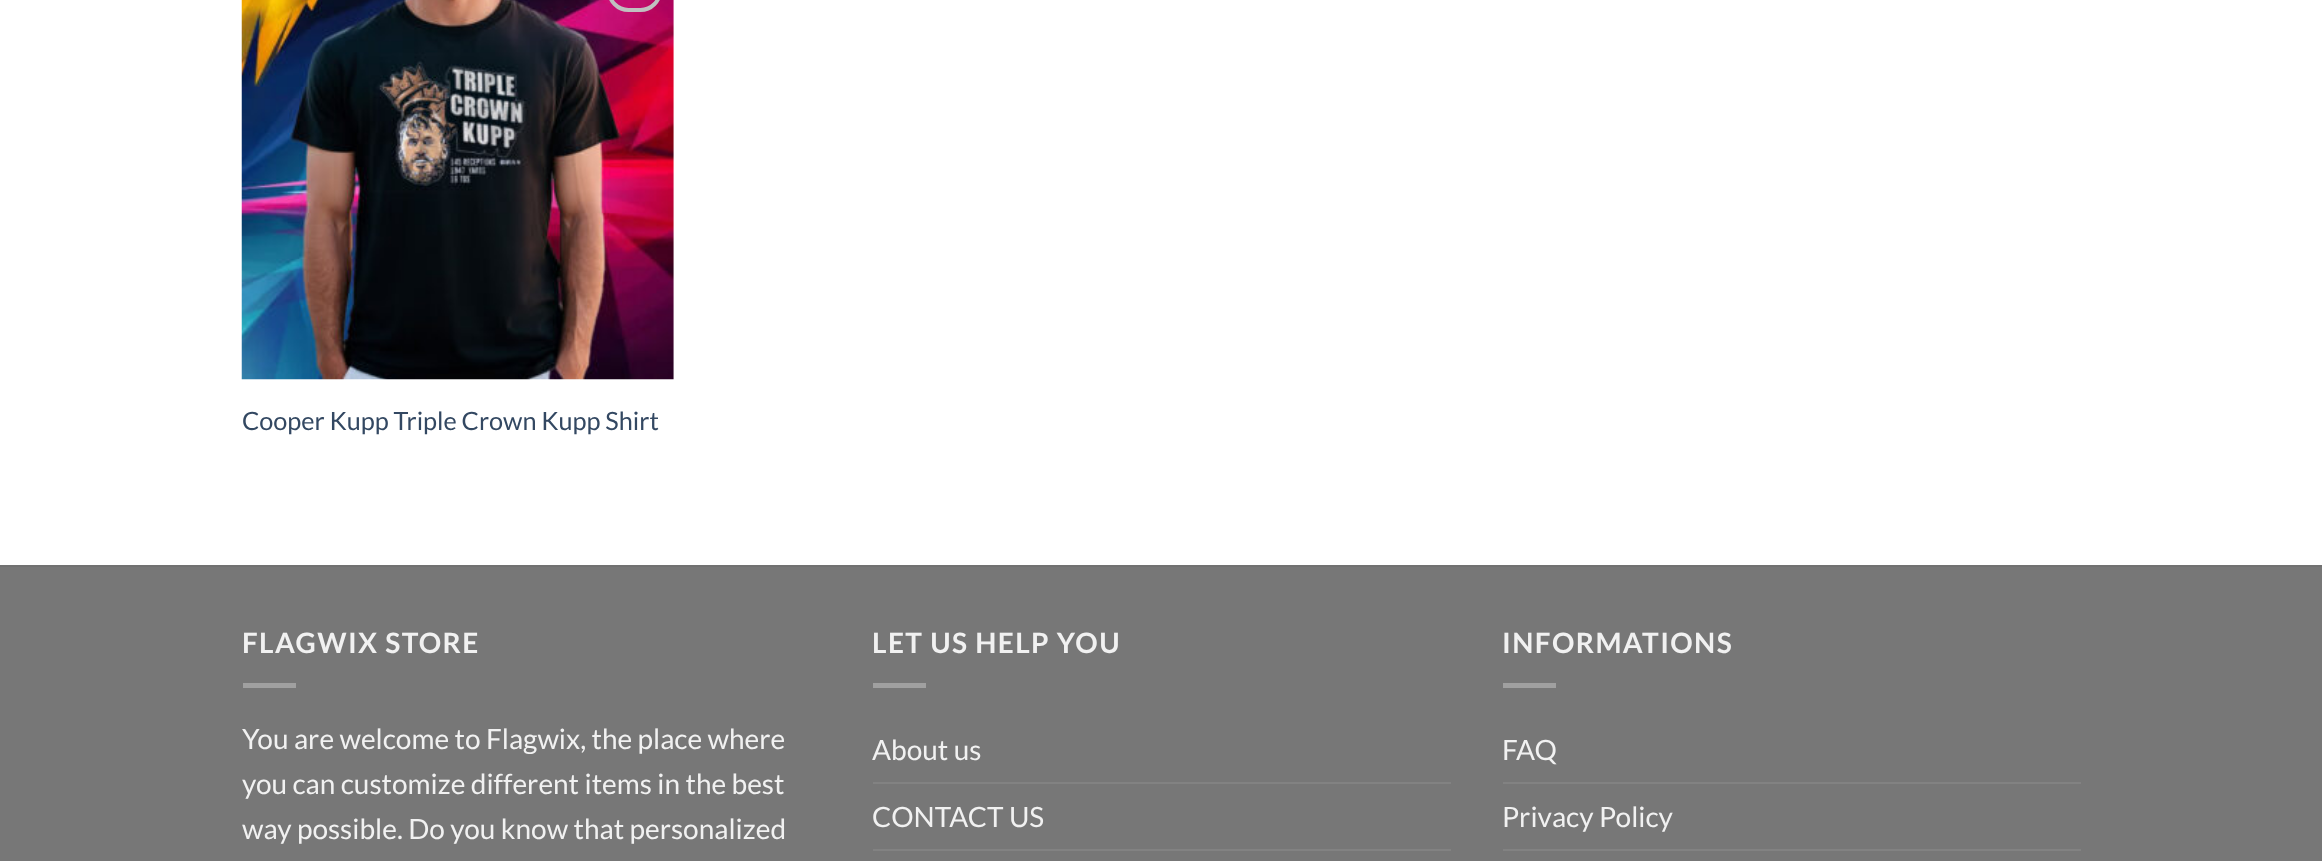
(async () => {
    const canvas = document.querySelector("canvas");
    canvas.width = 2322;
    canvas.height = 861;
    const context = canvas.getContext("2d");
    context.miterLimit = 4;
    context.fontKerning = "normal";
    function write(s, x, y, font, color) {
        context.font = font;
        context.fillStyle = color;
        context.fillText(s, x, y);
    }
    function block(x, y, w, h, color) {
        context.fillStyle = color;
        context.fillRect(x, y, w, h);
    }
    async function photo(src, x, y, w, h) {
        const img = new Image();
        img.src = src;
        await img.decode();
        context.drawImage(img, x, y, w, h);
    }

    block(0, 0, 2322, 861, "rgb(255, 255, 255)");
    await photo("media/1.png", 241, 0, 433, 380);
    context.beginPath();
    context.roundRect(609, -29, 51, 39, 25);
    context.strokeStyle = "rgb(192, 192, 192)";
    context.lineWidth = 4;
    context.stroke();
    write("Cooper Kupp Triple Crown Kupp Shirt", 242, 430, "25.25px Lato", "rgb(51, 72, 98)");
    block(0, 567, 2322, 294, "rgb(119, 119, 119)");
    block(0, 565, 2322, 2, "rgb(113, 113, 113)");
    context.letterSpacing = "1.4px";
    write("FLAGWIX STORE", 242, 653, "bold 28px Lato", "rgb(241, 241, 241)");
    block(243, 683, 53, 5, "rgb(160, 160, 160)");
    context.letterSpacing = "0px";
    write("You are welcome to Flagwix, the place where", 242, 749, "28px Lato", "rgb(241, 241, 241)");
    write("you can customize different items in the best", 242, 794, "28px Lato", "rgb(241, 241, 241)");
    write("way possible. Do you know that personalized", 242, 839, "28px Lato", "rgb(241, 241, 241)");
    context.letterSpacing = "1.4px";
    write("LET US HELP YOU", 872, 653, "bold 28px Lato", "rgb(241, 241, 241)");
    block(873, 683, 53, 5, "rgb(160, 160, 160)");
    context.letterSpacing = "0px";
    write("About us", 872, 760, "28px Lato", "rgb(241, 241, 241)");
    block(873, 782, 578, 2, "rgb(130, 130, 130)");
    write("CONTACT US", 872, 827, "28px Lato", "rgb(241, 241, 241)");
    block(873, 849, 578, 2, "rgb(130, 130, 130)");
    context.letterSpacing = "1.4px";
    write("INFORMATIONS", 1502, 653, "bold 28px Lato", "rgb(241, 241, 241)");
    block(1503, 683, 53, 5, "rgb(160, 160, 160)");
    context.letterSpacing = "0px";
    write("FAQ", 1502, 760, "28px Lato", "rgb(241, 241, 241)");
    block(1503, 782, 578, 2, "rgb(130, 130, 130)");
    write("Privacy Policy", 1502, 827, "28px Lato", "rgb(241, 241, 241)");
    block(1503, 849, 578, 2, "rgb(130, 130, 130)");
})();
